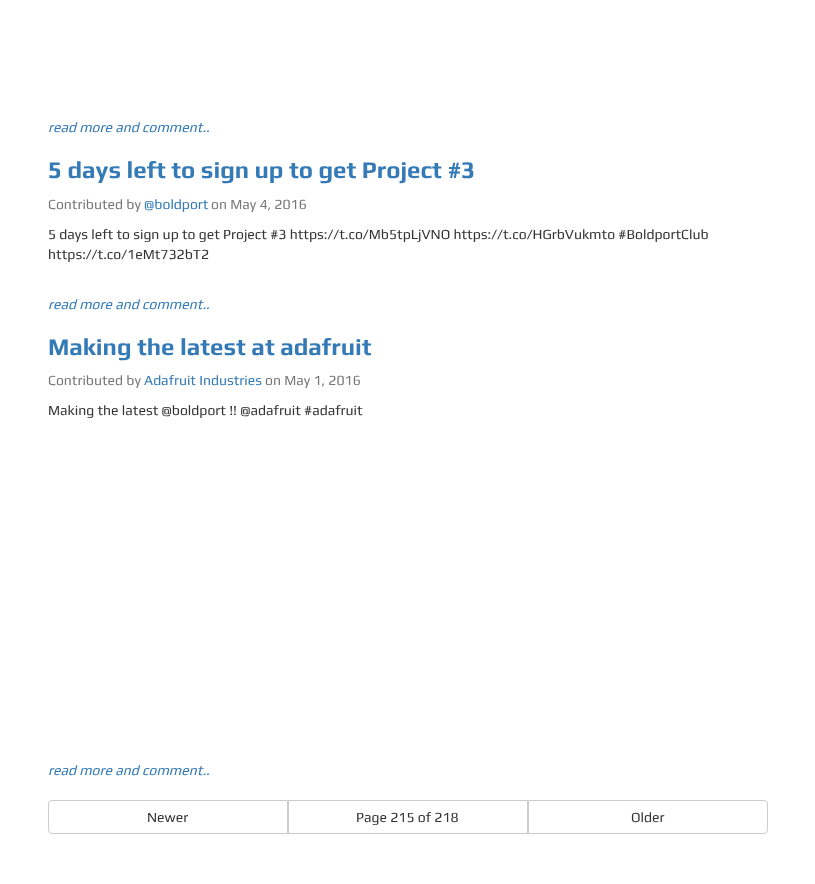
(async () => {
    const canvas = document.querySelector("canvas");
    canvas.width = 815;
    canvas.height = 884;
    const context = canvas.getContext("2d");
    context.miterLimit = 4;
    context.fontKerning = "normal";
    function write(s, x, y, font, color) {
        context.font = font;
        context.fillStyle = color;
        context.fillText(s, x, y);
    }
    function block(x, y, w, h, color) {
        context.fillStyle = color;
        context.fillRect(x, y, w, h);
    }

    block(0, 0, 815, 884, "rgb(255, 255, 255)");
    write("read more and comment..", 48, 132, "italic 14px Play", "rgb(51, 122, 183)");
    write("5 days left to sign up to get Project #3", 48, 178, "bold 24px Play", "rgb(51, 122, 183)");
    write("Contributed by", 48, 209, "14px Play", "rgb(119, 119, 119)");
    write("@boldport", 144, 209, "14px Play", "rgb(51, 122, 183)");
    write("on May 4, 2016", 211, 209, "14px Play", "rgb(119, 119, 119)");
    write("5 days left to sign up to get Project #3 https://t.co/Mb5tpLjVNO https://t.co/HGrbVukmto #BoldportClub", 48, 239, "14px Play", "rgb(51, 51, 51)");
    write("https://t.co/1eMt732bT2", 48, 259, "14px Play", "rgb(51, 51, 51)");
    write("read more and comment..", 48, 309, "italic 14px Play", "rgb(51, 122, 183)");
    write("Making the latest at adafruit", 48, 355, "bold 24px Play", "rgb(51, 122, 183)");
    write("Contributed by", 48, 385, "14px Play", "rgb(119, 119, 119)");
    write("Adafruit Industries", 144, 385, "14px Play", "rgb(51, 122, 183)");
    write("on May 1, 2016", 265, 385, "14px Play", "rgb(119, 119, 119)");
    write("Making the latest @boldport !! @adafruit #adafruit", 48, 415, "14px Play", "rgb(51, 51, 51)");
    write("read more and comment..", 48, 775, "italic 14px Play", "rgb(51, 122, 183)");
    context.beginPath();
    context.roundRect(48.5, 800.5, 239, 33, [3.5, 0, 0, 3.5]);
    context.strokeStyle = "rgb(204, 204, 204)";
    context.stroke();
    write("Newer", 147, 822, "14px Play", "rgb(51, 51, 51)");
    context.strokeRect(288.5, 800.5, 239, 33);
    write("Page 215 of 218", 356, 822, "14px Play", "rgb(51, 51, 51)");
    context.beginPath();
    context.roundRect(528.5, 800.5, 239, 33, [0, 3.5, 3.5, 0]);
    context.stroke();
    write("Older", 631, 822, "14px Play", "rgb(51, 51, 51)");
})();
